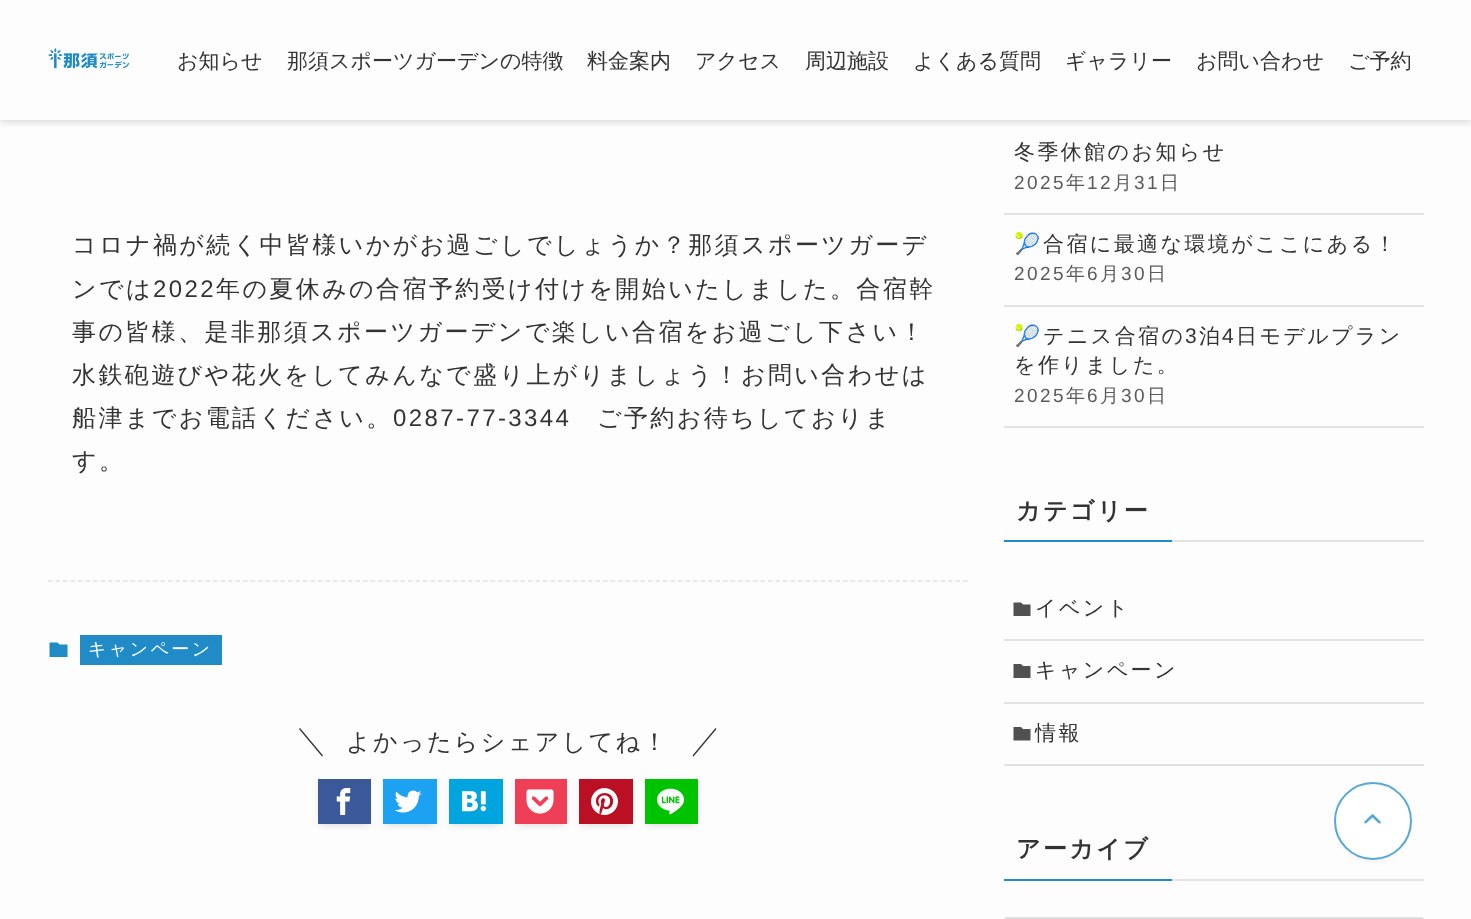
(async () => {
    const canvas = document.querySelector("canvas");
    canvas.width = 1471;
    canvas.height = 919;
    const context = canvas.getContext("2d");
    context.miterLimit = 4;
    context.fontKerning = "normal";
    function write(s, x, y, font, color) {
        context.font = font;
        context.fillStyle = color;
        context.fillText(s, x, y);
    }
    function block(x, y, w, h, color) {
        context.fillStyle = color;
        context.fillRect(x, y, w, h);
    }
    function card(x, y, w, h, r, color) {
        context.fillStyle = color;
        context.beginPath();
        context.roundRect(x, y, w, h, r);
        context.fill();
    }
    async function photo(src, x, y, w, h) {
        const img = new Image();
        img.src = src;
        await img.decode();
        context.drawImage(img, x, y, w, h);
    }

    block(0, 0, 1471, 919, "rgb(253, 253, 253)");
    context.fillStyle = "rgba(0, 0, 0, 0.12)";
    context.filter = "blur(3px)";
    context.beginPath();
    context.rect(0, 3, 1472, 120);
    context.fill();
    context.filter = "none";
    block(0, 0, 1471, 120, "rgb(253, 253, 253)");
    await photo("media/1.png", 48, 48, 81, 21);
    write("お知らせ", 177, 68, "500 21px WenQuanYi Zen Hei", "rgb(51, 51, 51)");
    write("那須スポーツガーデンの特徴", 287, 68, "500 21px WenQuanYi Zen Hei", "rgb(51, 51, 51)");
    write("料金案内", 587, 68, "500 21px WenQuanYi Zen Hei", "rgb(51, 51, 51)");
    write("アクセス", 695, 68, "500 21px WenQuanYi Zen Hei", "rgb(51, 51, 51)");
    write("周辺施設", 805, 68, "500 21px WenQuanYi Zen Hei", "rgb(51, 51, 51)");
    write("よくある質問", 913, 68, "500 21px WenQuanYi Zen Hei", "rgb(51, 51, 51)");
    write("ギャラリー", 1065, 68, "500 21px WenQuanYi Zen Hei", "rgb(51, 51, 51)");
    write("お問い合わせ", 1196, 68, "500 21px WenQuanYi Zen Hei", "rgb(51, 51, 51)");
    write("ご予約", 1348, 68, "500 21px WenQuanYi Zen Hei", "rgb(51, 51, 51)");
    context.letterSpacing = "2.4px";
    write("コロナ禍が続く中皆様いかがお過ごしでしょうか？那須スポーツガーデ", 72, 253, "500 24px WenQuanYi Zen Hei", "rgb(51, 51, 51)");
    write("ンでは", 72, 297, "500 24px WenQuanYi Zen Hei", "rgb(51, 51, 51)");
    write("2022", 153, 297, "24px Liberation Sans", "rgb(51, 51, 51)");
    write("年の夏休みの合宿予約受け付けを開始いたしました。合宿幹", 216, 297, "500 24px WenQuanYi Zen Hei", "rgb(51, 51, 51)");
    write("事の皆様、是非那須スポーツガーデンで楽しい合宿をお過ごし下さい！", 72, 340, "500 24px WenQuanYi Zen Hei", "rgb(51, 51, 51)");
    write("水鉄砲遊びや花火をしてみんなで盛り上がりましょう！お問い合わせは", 72, 383, "500 24px WenQuanYi Zen Hei", "rgb(51, 51, 51)");
    write("船津までお電話ください。", 72, 426, "500 24px WenQuanYi Zen Hei", "rgb(51, 51, 51)");
    write("0287-77-3344", 393, 426, "24px Liberation Sans", "rgb(51, 51, 51)");
    write("ご予約お待ちしておりま", 597, 426, "500 24px WenQuanYi Zen Hei", "rgb(51, 51, 51)");
    write("す。", 72, 469, "500 24px WenQuanYi Zen Hei", "rgb(51, 51, 51)");
    context.beginPath();
    context.moveTo(48, 581);
    context.lineTo(967.5, 581);
    context.strokeStyle = "rgb(226, 226, 226)";
    context.lineWidth = 1.5;
    context.setLineDash([4.5, 3]);
    context.stroke();
    context.fillStyle = "rgb(32, 139, 199)";
    context.beginPath();
    context.moveTo(57.5, 642.5);
    context.lineTo(59.5, 644.5);
    context.lineTo(67.5, 644.5);
    context.lineTo(67.5, 657);
    context.lineTo(49.5, 657);
    context.lineTo(49.5, 642.5);
    context.closePath();
    context.fill();
    block(80, 635, 142, 30, "rgb(32, 139, 199)");
    write("キャンペーン", 88, 655, "500 18px WenQuanYi Zen Hei", "rgb(255, 255, 255)");
    context.fillStyle = "rgb(51, 51, 51)";
    context.beginPath();
    context.moveTo(299, 729);
    context.lineTo(300, 728);
    context.lineTo(323, 755.5);
    context.lineTo(322, 756.5);
    context.closePath();
    context.fill();
    write("よかったらシェアしてね！", 346, 750, "500 24px WenQuanYi Zen Hei", "rgb(51, 51, 51)");
    context.beginPath();
    context.moveTo(715.5, 728);
    context.lineTo(716.5, 729);
    context.lineTo(693.5, 756.5);
    context.lineTo(692.5, 755.5);
    context.closePath();
    context.fill();
    context.fillStyle = "rgba(0, 0, 0, 0.1)";
    context.filter = "blur(3px)";
    context.beginPath();
    context.rect(324, 791, 41, 33);
    context.fill();
    context.filter = "none";
    context.fillStyle = "rgba(0, 0, 0, 0.05)";
    context.filter = "blur(3px)";
    context.beginPath();
    context.rect(318, 782, 53, 45);
    context.fill();
    context.filter = "none";
    block(318, 779, 53, 45, "rgb(59, 89, 152)");
    await photo("media/2.png", 336, 788, 15, 27);
    context.fillStyle = "rgba(0, 0, 0, 0.1)";
    context.filter = "blur(3px)";
    context.beginPath();
    context.rect(389, 791, 42, 33);
    context.fill();
    context.filter = "none";
    context.fillStyle = "rgba(0, 0, 0, 0.05)";
    context.filter = "blur(3px)";
    context.beginPath();
    context.rect(383, 782, 54, 45);
    context.fill();
    context.filter = "none";
    block(383, 779, 54, 45, "rgb(29, 161, 242)");
    await photo("media/3.png", 394, 790, 28, 23);
    context.fillStyle = "rgba(0, 0, 0, 0.1)";
    context.filter = "blur(3px)";
    context.beginPath();
    context.rect(455, 791, 42, 33);
    context.fill();
    context.filter = "none";
    context.fillStyle = "rgba(0, 0, 0, 0.05)";
    context.filter = "blur(3px)";
    context.beginPath();
    context.rect(449, 782, 54, 45);
    context.fill();
    context.filter = "none";
    block(449, 779, 54, 45, "rgb(0, 164, 222)");
    await photo("media/4.png", 462, 791, 24, 21);
    context.fillStyle = "rgba(0, 0, 0, 0.1)";
    context.filter = "blur(3px)";
    context.beginPath();
    context.rect(521, 791, 40, 33);
    context.fill();
    context.filter = "none";
    context.fillStyle = "rgba(0, 0, 0, 0.05)";
    context.filter = "blur(3px)";
    context.beginPath();
    context.rect(515, 782, 52, 45);
    context.fill();
    context.filter = "none";
    block(515, 779, 52, 45, "rgb(239, 63, 86)");
    await photo("media/5.png", 526, 789, 28, 25);
    context.fillStyle = "rgba(0, 0, 0, 0.1)";
    context.filter = "blur(3px)";
    context.beginPath();
    context.rect(585, 791, 42, 33);
    context.fill();
    context.filter = "none";
    context.fillStyle = "rgba(0, 0, 0, 0.05)";
    context.filter = "blur(3px)";
    context.beginPath();
    context.rect(579, 782, 54, 45);
    context.fill();
    context.filter = "none";
    block(579, 779, 54, 45, "rgb(187, 15, 35)");
    await photo("media/6.png", 591, 788, 27, 27);
    context.fillStyle = "rgba(0, 0, 0, 0.1)";
    context.filter = "blur(3px)";
    context.beginPath();
    context.rect(651, 791, 41, 33);
    context.fill();
    context.filter = "none";
    context.fillStyle = "rgba(0, 0, 0, 0.05)";
    context.filter = "blur(3px)";
    context.beginPath();
    context.rect(645, 782, 53, 45);
    context.fill();
    context.filter = "none";
    block(645, 779, 53, 45, "rgb(0, 195, 0)");
    await photo("media/7.png", 657, 788, 27, 27);
    block(1004, 213, 420, 2, "rgb(227, 227, 227)");
    write("冬季休館のお知らせ", 1014, 159, "500 21px WenQuanYi Zen Hei", "rgb(51, 51, 51)");
    write("2025", 1014, 189, "19px Liberation Sans", "rgb(91, 91, 91)");
    write("年", 1066, 189, "500 19px WenQuanYi Zen Hei", "rgb(91, 91, 91)");
    write("12", 1087, 189, "19px Liberation Sans", "rgb(91, 91, 91)");
    write("月", 1113, 189, "500 19px WenQuanYi Zen Hei", "rgb(91, 91, 91)");
    write("31", 1134, 189, "19px Liberation Sans", "rgb(91, 91, 91)");
    write("日", 1160, 189, "500 19px WenQuanYi Zen Hei", "rgb(91, 91, 91)");
    block(1004, 305, 420, 2, "rgb(227, 227, 227)");
    write("🎾", 1014, 251, "21px Noto Color Emoji", "rgb(51, 51, 51)");
    write("合宿に最適な環境がここにある！", 1043, 251, "500 21px WenQuanYi Zen Hei", "rgb(51, 51, 51)");
    write("2025", 1014, 280, "19px Liberation Sans", "rgb(91, 91, 91)");
    write("年", 1066, 280, "500 19px WenQuanYi Zen Hei", "rgb(91, 91, 91)");
    write("6", 1087, 280, "19px Liberation Sans", "rgb(91, 91, 91)");
    write("月", 1100, 280, "500 19px WenQuanYi Zen Hei", "rgb(91, 91, 91)");
    write("30", 1121, 280, "19px Liberation Sans", "rgb(91, 91, 91)");
    write("日", 1147, 280, "500 19px WenQuanYi Zen Hei", "rgb(91, 91, 91)");
    block(1004, 426, 420, 2, "rgb(227, 227, 227)");
    write("🎾", 1014, 343, "21px Noto Color Emoji", "rgb(51, 51, 51)");
    write("テニス合宿の", 1043, 343, "500 21px WenQuanYi Zen Hei", "rgb(51, 51, 51)");
    write("3", 1185, 343, "21px Liberation Sans", "rgb(51, 51, 51)");
    write("泊", 1199, 343, "500 21px WenQuanYi Zen Hei", "rgb(51, 51, 51)");
    write("4", 1222, 343, "21px Liberation Sans", "rgb(51, 51, 51)");
    write("日モデルプラン", 1236, 343, "500 21px WenQuanYi Zen Hei", "rgb(51, 51, 51)");
    write("を作りました。", 1014, 372, "500 21px WenQuanYi Zen Hei", "rgb(51, 51, 51)");
    write("2025", 1014, 402, "19px Liberation Sans", "rgb(91, 91, 91)");
    write("年", 1066, 402, "500 19px WenQuanYi Zen Hei", "rgb(91, 91, 91)");
    write("6", 1087, 402, "19px Liberation Sans", "rgb(91, 91, 91)");
    write("月", 1100, 402, "500 19px WenQuanYi Zen Hei", "rgb(91, 91, 91)");
    write("30", 1121, 402, "19px Liberation Sans", "rgb(91, 91, 91)");
    write("日", 1147, 402, "500 19px WenQuanYi Zen Hei", "rgb(91, 91, 91)");
    write("カテゴリー", 1016, 519, "bold 24px WenQuanYi Zen Hei", "rgb(51, 51, 51)");
    block(1004, 540, 168, 2, "rgb(32, 139, 199)");
    block(1172, 540, 252, 2, "rgb(227, 227, 227)");
    block(1004, 639, 420, 2, "rgb(226, 226, 226)");
    context.fillStyle = "rgb(81, 81, 81)";
    context.beginPath();
    context.moveTo(1021, 602.5);
    context.lineTo(1023, 604.5);
    context.lineTo(1030.5, 604.5);
    context.lineTo(1030.5, 616);
    context.lineTo(1013.5, 616);
    context.lineTo(1013.5, 602.5);
    context.closePath();
    context.fill();
    write("イベント", 1035, 615, "500 21px WenQuanYi Zen Hei", "rgb(51, 51, 51)");
    block(1004, 702, 420, 2, "rgb(226, 226, 226)");
    context.fillStyle = "rgb(81, 81, 81)";
    context.beginPath();
    context.moveTo(1021, 664);
    context.lineTo(1023, 666);
    context.lineTo(1030.5, 666);
    context.lineTo(1030.5, 678);
    context.lineTo(1013.5, 678);
    context.lineTo(1013.5, 664);
    context.closePath();
    context.fill();
    write("キャンペーン", 1035, 677, "500 21px WenQuanYi Zen Hei", "rgb(51, 51, 51)");
    block(1004, 764, 420, 2, "rgb(226, 226, 226)");
    context.fillStyle = "rgb(81, 81, 81)";
    context.beginPath();
    context.moveTo(1021, 727);
    context.lineTo(1023, 729);
    context.lineTo(1030.5, 729);
    context.lineTo(1030.5, 740.5);
    context.lineTo(1013.5, 740.5);
    context.lineTo(1013.5, 727);
    context.closePath();
    context.fill();
    write("情報", 1035, 740, "500 21px WenQuanYi Zen Hei", "rgb(51, 51, 51)");
    write("アーカイブ", 1016, 857, "bold 24px WenQuanYi Zen Hei", "rgb(51, 51, 51)");
    block(1004, 879, 168, 2, "rgb(32, 139, 199)");
    block(1172, 879, 252, 2, "rgb(227, 227, 227)");
    card(1004, 917, 420, 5, 3, "rgb(247, 247, 247)");
    context.beginPath();
    context.roundRect(1005, 918, 418, 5, 2);
    context.strokeStyle = "rgba(199, 199, 199, 0.5)";
    context.lineWidth = 2;
    context.setLineDash([]);
    context.stroke();
    context.fillStyle = "rgba(63, 63, 63, 0.1)";
    context.filter = "blur(3px)";
    context.beginPath();
    context.roundRect(1340, 794, 66, 66, 33);
    context.fill();
    context.filter = "none";
    context.fillStyle = "rgb(255, 255, 255)";
    context.beginPath();
    context.arc(1373, 821, 38, 0, Math.PI * 2);
    context.fill();
    context.strokeStyle = "rgb(87, 168, 213)";
    context.stroke();
    await photo("media/8.png", 1364, 814, 17, 10);
})();
